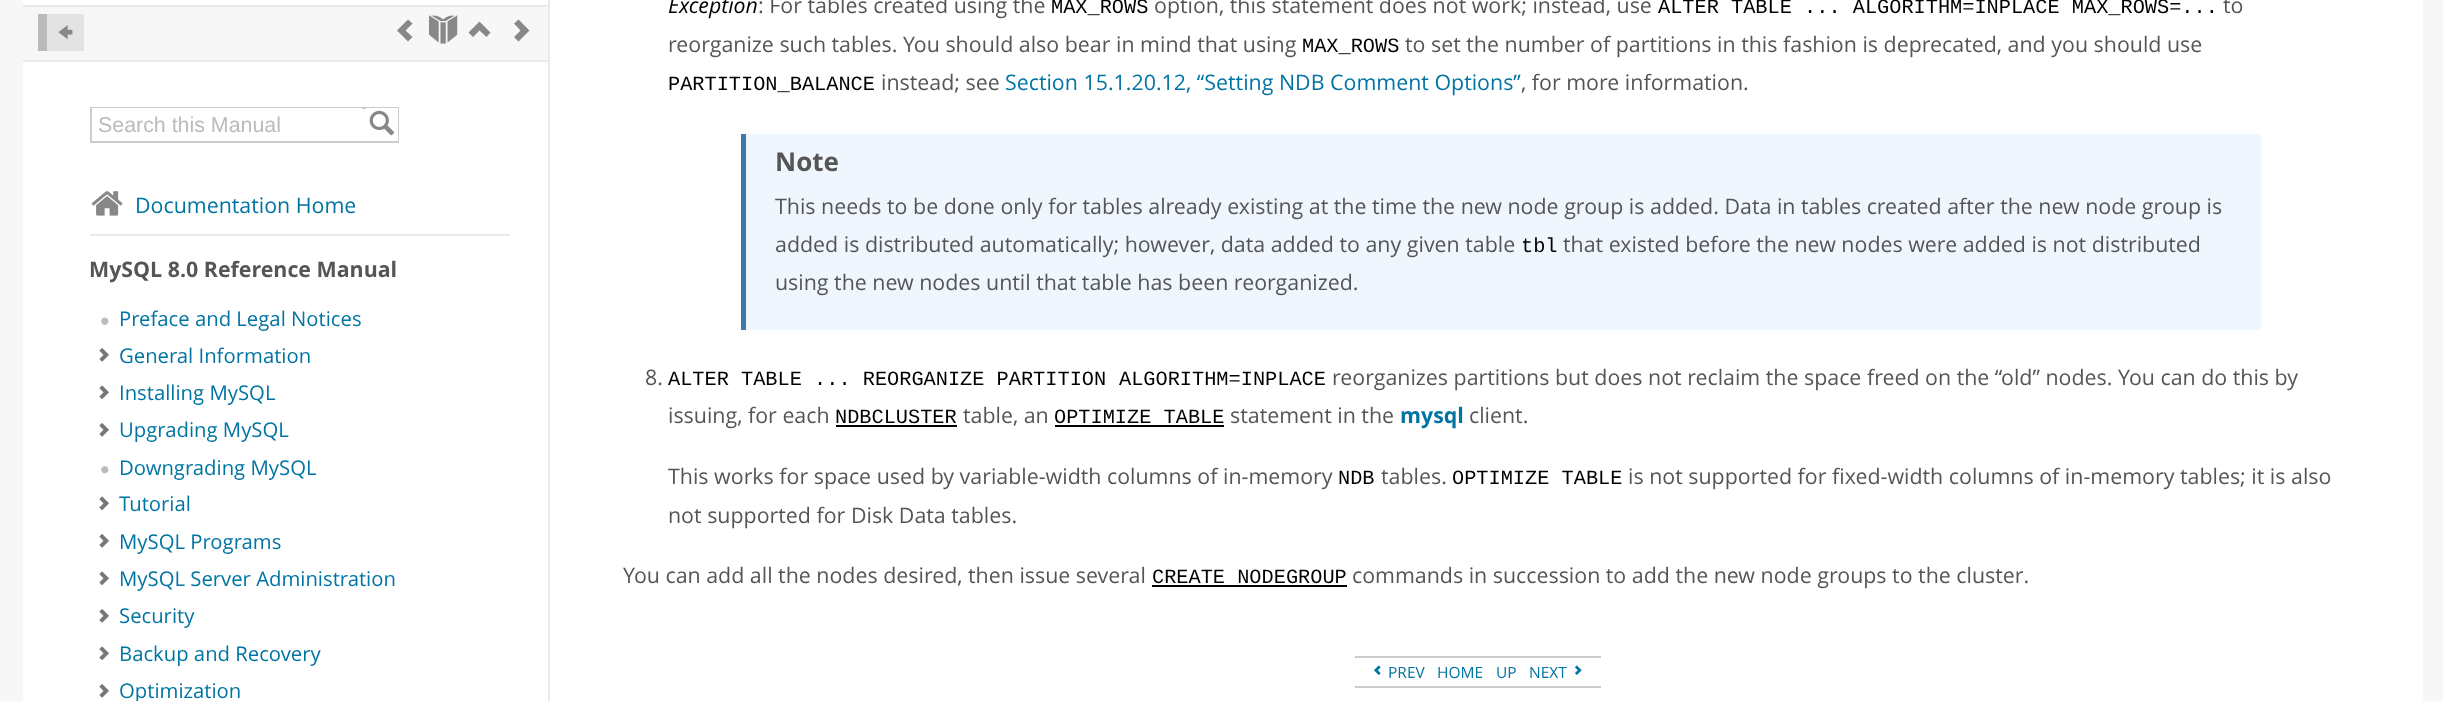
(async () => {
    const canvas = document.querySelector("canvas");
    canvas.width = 2443;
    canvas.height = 701;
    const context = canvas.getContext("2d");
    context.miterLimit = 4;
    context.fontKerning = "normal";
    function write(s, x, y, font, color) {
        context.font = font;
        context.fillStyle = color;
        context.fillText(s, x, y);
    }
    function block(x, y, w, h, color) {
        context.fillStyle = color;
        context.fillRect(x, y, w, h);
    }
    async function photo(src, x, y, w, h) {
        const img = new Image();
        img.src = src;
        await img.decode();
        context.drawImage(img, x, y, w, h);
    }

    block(0, 0, 2443, 701, "rgb(247, 247, 247)");
    block(550, 0, 1873, 701, "rgb(255, 255, 255)");
    block(23, 0, 525, 701, "rgb(255, 255, 255)");
    block(548, 0, 2, 701, "rgb(233, 234, 235)");
    block(23, 7, 525, 53, "rgb(247, 247, 247)");
    block(23, 5, 525, 2, "rgb(233, 234, 235)");
    block(23, 60, 525, 2, "rgb(233, 234, 235)");
    block(47, 14, 37, 37, "rgb(227, 227, 227)");
    block(38, 14, 9, 37, "rgb(187, 187, 187)");
    await photo("media/1.png", 58, 25, 15, 14);
    context.fillStyle = "rgb(136, 136, 136)";
    context.beginPath();
    context.moveTo(412.5, 23.5);
    context.lineTo(408, 19.5);
    context.lineTo(397, 30.5);
    context.lineTo(408, 41.5);
    context.lineTo(412.5, 37);
    context.lineTo(405.5, 30.5);
    context.closePath();
    context.fill();
    await photo("media/2.png", 429, 15, 29, 29);
    context.beginPath();
    context.moveTo(479.5, 21.5);
    context.lineTo(468.5, 32.5);
    context.lineTo(473, 37);
    context.lineTo(479.5, 30.5);
    context.lineTo(486.5, 37);
    context.lineTo(490.5, 32.5);
    context.closePath();
    context.moveTo(518.5, 19.5);
    context.lineTo(514, 23.5);
    context.lineTo(520.5, 30.5);
    context.lineTo(514, 37);
    context.lineTo(518.5, 41.5);
    context.lineTo(529.5, 30.5);
    context.closePath();
    context.fill();
    context.strokeStyle = "rgb(204, 204, 204)";
    context.lineWidth = 2;
    context.strokeRect(91, 108, 307, 34);
    block(92, 108, 270, 1, "rgb(255, 255, 255)");
    write("Search this Manual", 98, 132, "21.38px Liberation Sans", "rgb(187, 187, 187)");
    block(366, 108, 32, 33, "rgb(255, 255, 255)");
    await photo("media/3.png", 369, 110, 26, 26);
    await photo("media/4.png", 91, 191, 32, 25);
    write("Documentation Home", 135, 213, "21.38px Open Sans", "rgb(0, 116, 163)");
    block(90, 234, 420, 2, "rgb(233, 234, 235)");
    write("MySQL 8.0 Reference Manual", 89, 277, "bold 21.38px Open Sans", "rgb(85, 85, 85)");
    await photo("media/5.png", 101, 317, 8, 8);
    write("Preface and Legal Notices", 119, 326, "20.3px Open Sans", "rgb(0, 116, 163)");
    await photo("media/6.png", 99, 348, 10, 14);
    write("General Information", 119, 363, "20.3px Open Sans", "rgb(0, 116, 163)");
    await photo("media/7.png", 99, 385, 10, 15);
    write("Installing MySQL", 119, 400, "20.3px Open Sans", "rgb(0, 116, 163)");
    await photo("media/6.png", 99, 423, 10, 14);
    write("Upgrading MySQL", 119, 437, "20.3px Open Sans", "rgb(0, 116, 163)");
    await photo("media/8.png", 101, 466, 8, 8);
    write("Downgrading MySQL", 119, 475, "20.3px Open Sans", "rgb(0, 116, 163)");
    await photo("media/7.png", 99, 496, 10, 15);
    write("Tutorial", 119, 511, "20.3px Open Sans", "rgb(0, 116, 163)");
    await photo("media/6.png", 99, 534, 10, 14);
    write("MySQL Programs", 119, 549, "20.3px Open Sans", "rgb(0, 116, 163)");
    await photo("media/7.png", 99, 571, 10, 15);
    write("MySQL Server Administration", 119, 586, "20.3px Open Sans", "rgb(0, 116, 163)");
    await photo("media/6.png", 99, 609, 10, 14);
    write("Security", 119, 623, "20.3px Open Sans", "rgb(0, 116, 163)");
    await photo("media/7.png", 99, 646, 10, 15);
    write("Backup and Recovery", 119, 661, "20.3px Open Sans", "rgb(0, 116, 163)");
    await photo("media/6.png", 99, 684, 10, 14);
    write("Optimization", 119, 698, "20.3px Open Sans", "rgb(0, 116, 163)");
    write("Exception", 668, 13, "italic 21.38px Open Sans", "rgb(0, 0, 0)");
    write(": For tables created using the", 758, 13, "21.38px Open Sans", "rgb(85, 85, 85)");
    write("MAX_ROWS", 1051, 13, "20.3px Liberation Mono", "rgb(0, 0, 0)");
    write("option, this statement does not work; instead, use", 1154, 13, "21.38px Open Sans", "rgb(85, 85, 85)");
    write("ALTER TABLE ... ALGORITHM=INPLACE MAX_ROWS=...", 1658, 13, "20.3px Liberation Mono", "rgb(0, 0, 0)");
    write("to", 2223, 13, "21.38px Open Sans", "rgb(85, 85, 85)");
    write("reorganize such tables. You should also bear in mind that using", 668, 52, "21.38px Open Sans", "rgb(85, 85, 85)");
    write("MAX_ROWS", 1302, 52, "20.3px Liberation Mono", "rgb(0, 0, 0)");
    write("to set the number of partitions in this fashion is deprecated, and you should use", 1405, 52, "21.38px Open Sans", "rgb(85, 85, 85)");
    write("PARTITION_BALANCE", 668, 90, "20.3px Liberation Mono", "rgb(0, 0, 0)");
    write("instead; see", 881, 90, "21.38px Open Sans", "rgb(85, 85, 85)");
    write("Section 15.1.20.12, “Setting NDB Comment Options”", 1005, 90, "21.38px Open Sans", "rgb(0, 116, 163)");
    write(", for more information.", 1521, 90, "21.38px Open Sans", "rgb(85, 85, 85)");
    block(746, 134, 1515, 196, "rgb(239, 246, 254)");
    block(741, 134, 5, 196, "rgb(62, 120, 166)");
    write("Note", 775, 171, "bold 26px Open Sans", "rgb(85, 85, 85)");
    write("This needs to be done only for tables already existing at the time the new node group is added. Data in tables created after the new node group is", 775, 214, "21.38px Open Sans", "rgb(85, 85, 85)");
    write("added is distributed automatically; however, data added to any given table", 775, 252, "21.38px Open Sans", "rgb(85, 85, 85)");
    write("tbl", 1521, 252, "20.3px Liberation Mono", "rgb(0, 0, 0)");
    write("that existed before the new nodes were added is not distributed", 1563, 252, "21.38px Open Sans", "rgb(85, 85, 85)");
    write("using the new nodes until that table has been reorganized.", 775, 290, "21.38px Open Sans", "rgb(85, 85, 85)");
    write("8.", 645, 385, "21.38px Open Sans", "rgb(85, 85, 85)");
    write("ALTER TABLE ... REORGANIZE PARTITION", 668, 385, "20.3px Liberation Mono", "rgb(0, 0, 0)");
    write("ALGORITHM=INPLACE", 1119, 385, "20.3px Liberation Mono", "rgb(0, 0, 0)");
    write("reorganizes partitions but does not reclaim the space freed on the “", 1332, 385, "21.38px Open Sans", "rgb(85, 85, 85)");
    write("old” nodes. You can do this by", 2001, 385, "21.38px Open Sans", "rgb(85, 85, 85)");
    write("issuing, for each", 668, 423, "21.38px Open Sans", "rgb(85, 85, 85)");
    write("NDBCLUSTER", 835, 423, "20.3px Liberation Mono", "rgb(0, 0, 0)");
    block(836, 425, 121, 2, "rgb(0, 0, 0)");
    write("table, an", 963, 423, "21.38px Open Sans", "rgb(85, 85, 85)");
    write("OPTIMIZE TABLE", 1054, 423, "20.3px Liberation Mono", "rgb(0, 0, 0)");
    block(1055, 425, 169, 2, "rgb(0, 0, 0)");
    write("statement in the", 1230, 423, "21.38px Open Sans", "rgb(85, 85, 85)");
    write("mysql", 1400, 423, "bold 21.38px Open Sans", "rgb(0, 116, 163)");
    write("client.", 1469, 423, "21.38px Open Sans", "rgb(85, 85, 85)");
    write("This works for space used by variable-width columns of in-memory", 668, 484, "21.38px Open Sans", "rgb(85, 85, 85)");
    write("NDB", 1338, 484, "20.3px Liberation Mono", "rgb(0, 0, 0)");
    write("tables.", 1381, 484, "21.38px Open Sans", "rgb(85, 85, 85)");
    write("OPTIMIZE TABLE", 1452, 484, "20.3px Liberation Mono", "rgb(0, 0, 0)");
    write("is not supported for fixed-width columns of in-memory tables; it is also", 1628, 484, "21.38px Open Sans", "rgb(85, 85, 85)");
    write("not supported for Disk Data tables.", 668, 523, "21.38px Open Sans", "rgb(85, 85, 85)");
    write("You can add all the nodes desired, then issue several", 623, 583, "21.38px Open Sans", "rgb(85, 85, 85)");
    write("CREATE NODEGROUP", 1152, 583, "20.3px Liberation Mono", "rgb(0, 0, 0)");
    block(1152, 585, 195, 2, "rgb(0, 0, 0)");
    write("commands in succession to add the new node groups to the cluster.", 1352, 583, "21.38px Open Sans", "rgb(85, 85, 85)");
    block(1355, 656, 246, 2, "rgb(204, 204, 204)");
    block(1355, 686, 246, 2, "rgb(204, 204, 204)");
    await photo("media/9.png", 1374, 665, 7, 10);
    write("PREV", 1388, 678, "15.5px Open Sans", "rgb(0, 116, 163)");
    write("HOME", 1437, 678, "15.5px Open Sans", "rgb(0, 116, 163)");
    write("UP", 1496, 678, "15.5px Open Sans", "rgb(0, 116, 163)");
    write("NEXT", 1529, 678, "15.5px Open Sans", "rgb(0, 116, 163)");
    await photo("media/10.png", 1575, 665, 7, 10);
})();
